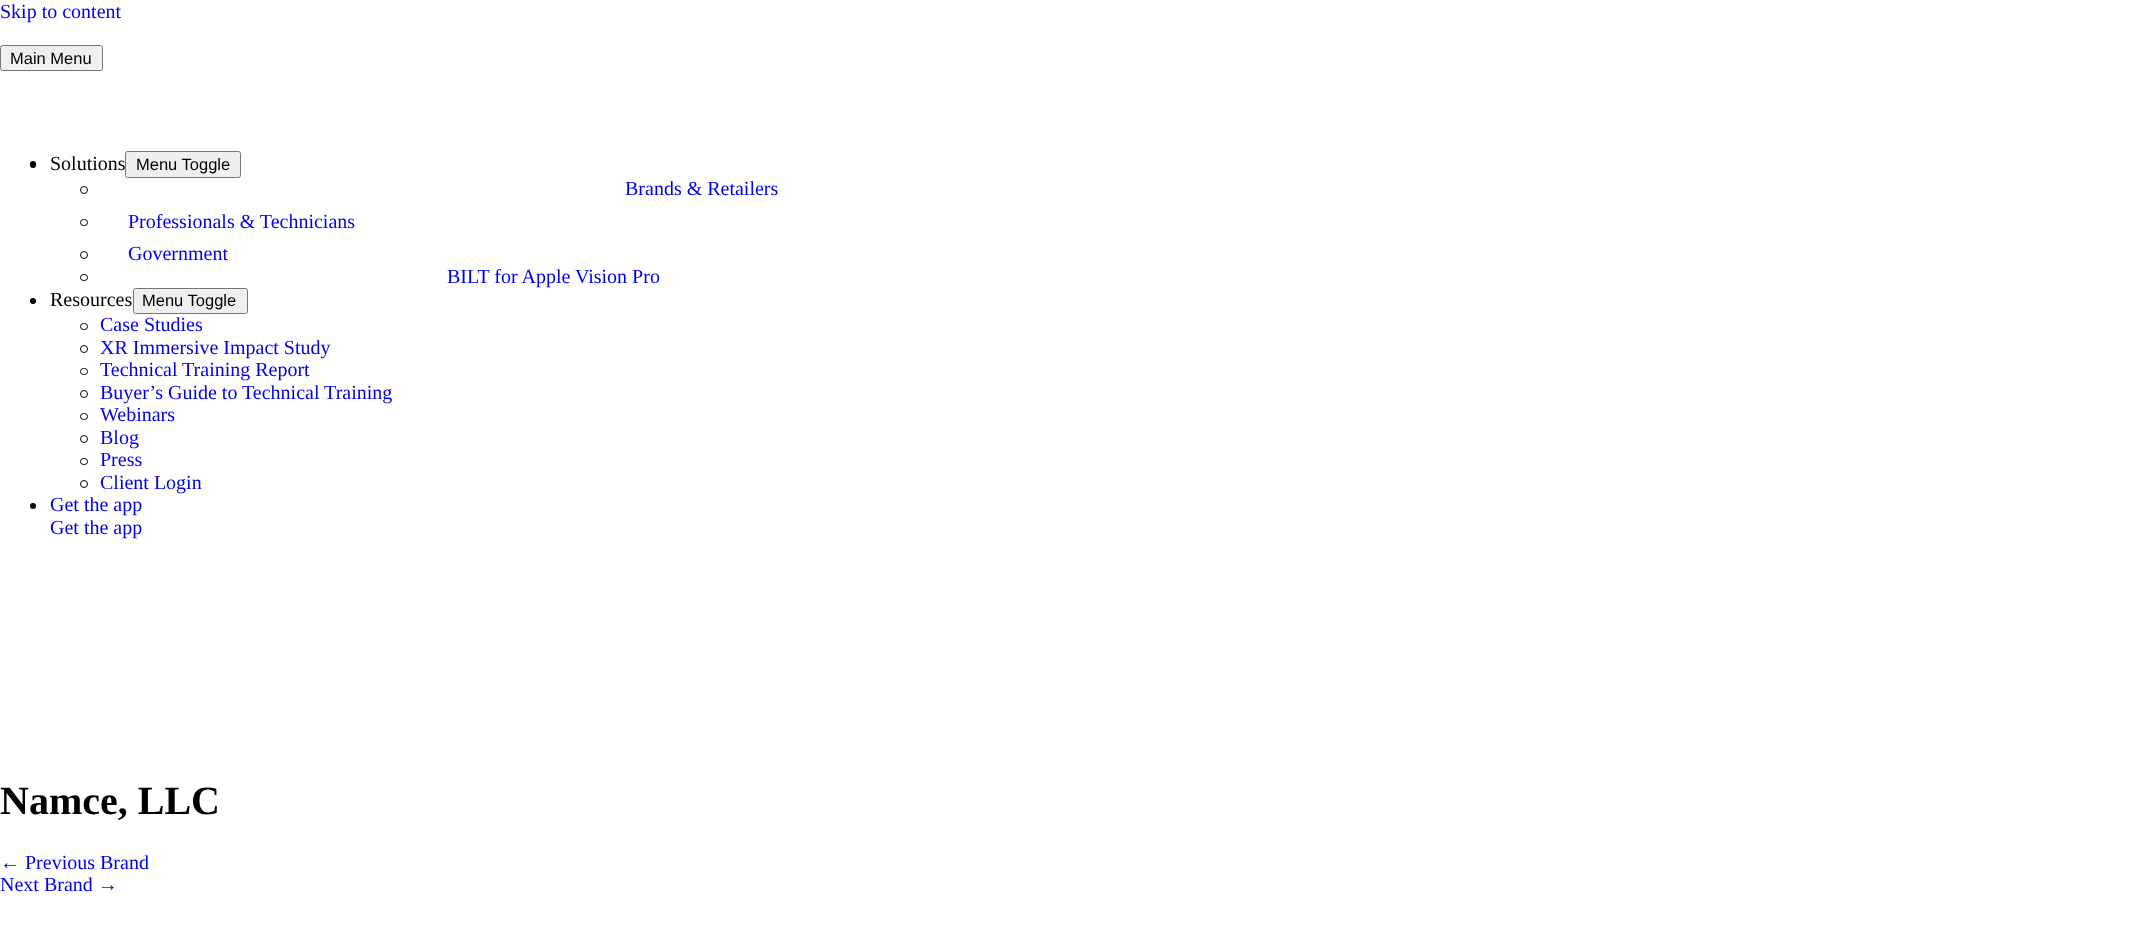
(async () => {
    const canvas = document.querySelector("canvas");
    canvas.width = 2156;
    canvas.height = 937;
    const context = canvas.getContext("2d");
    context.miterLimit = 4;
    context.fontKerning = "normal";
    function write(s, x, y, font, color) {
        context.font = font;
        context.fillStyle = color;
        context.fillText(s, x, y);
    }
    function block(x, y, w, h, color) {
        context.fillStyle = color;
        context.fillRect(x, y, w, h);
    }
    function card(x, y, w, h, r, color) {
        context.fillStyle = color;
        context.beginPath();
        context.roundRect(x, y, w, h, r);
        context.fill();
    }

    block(0, 0, 2156, 937, "rgb(255, 255, 255)");
    write("Skip to content", 0, 18, "20px Liberation Serif", "rgb(0, 0, 238)");
    context.fillStyle = "rgb(239, 239, 239)";
    context.beginPath();
    context.roundRect(0.5, 45.5, 102, 25, 2);
    context.fill();
    context.strokeStyle = "rgb(118, 118, 118)";
    context.stroke();
    write("Main Menu", 10, 64, "16.5px Liberation Sans", "rgb(0, 0, 0)");
    card(30, 161, 6, 7, 3, "rgb(0, 0, 0)");
    write("Solutions", 50, 170, "20px Liberation Serif", "rgb(0, 0, 0)");
    context.fillStyle = "rgb(239, 239, 239)";
    context.beginPath();
    context.roundRect(125.5, 151.5, 115, 26, 2);
    context.fill();
    context.stroke();
    write("Menu Toggle", 136, 170, "16.5px Liberation Sans", "rgb(0, 0, 0)");
    context.beginPath();
    context.arc(84, 190, 3.5, 0, Math.PI * 2);
    context.strokeStyle = "rgb(0, 0, 0)";
    context.stroke();
    write("Brands & Retailers", 625, 195, "20px Liberation Serif", "rgb(0, 0, 238)");
    context.beginPath();
    context.roundRect(80.5, 219.5, 7, 6, 3);
    context.stroke();
    write("Professionals & Technicians", 128, 228, "20px Liberation Serif", "rgb(0, 0, 238)");
    context.beginPath();
    context.arc(84, 255, 3.5, 0, Math.PI * 2);
    context.stroke();
    write("Government", 128, 260, "20px Liberation Serif", "rgb(0, 0, 238)");
    context.beginPath();
    context.roundRect(80.5, 274.5, 7, 6, 3);
    context.stroke();
    write("BILT for Apple Vision Pro", 447, 283, "20px Liberation Serif", "rgb(0, 0, 238)");
    context.fillStyle = "rgb(0, 0, 0)";
    context.beginPath();
    context.arc(33, 301, 3, 0, Math.PI * 2);
    context.fill();
    write("Resources", 50, 306, "20px Liberation Serif", "rgb(0, 0, 0)");
    context.fillStyle = "rgb(239, 239, 239)";
    context.beginPath();
    context.roundRect(133.5, 288.5, 114, 25, 2);
    context.fill();
    context.strokeStyle = "rgb(118, 118, 118)";
    context.stroke();
    write("Menu Toggle", 142, 306, "16.5px Liberation Sans", "rgb(0, 0, 0)");
    context.beginPath();
    context.roundRect(80.5, 323.5, 7, 6, 3);
    context.strokeStyle = "rgb(0, 0, 0)";
    context.stroke();
    write("Case Studies", 100, 331, "20px Liberation Serif", "rgb(0, 0, 238)");
    context.beginPath();
    context.arc(84, 349, 3.5, 0, Math.PI * 2);
    context.stroke();
    write("XR Immersive Impact Study", 100, 354, "20px Liberation Serif", "rgb(0, 0, 238)");
    context.beginPath();
    context.roundRect(80.5, 368.5, 7, 6, 3);
    context.stroke();
    write("Technical Training Report", 100, 376, "20px Liberation Serif", "rgb(0, 0, 238)");
    context.beginPath();
    context.arc(84, 394, 3.5, 0, Math.PI * 2);
    context.stroke();
    write("Buyer’s Guide to Technical Training", 100, 399, "20px Liberation Serif", "rgb(0, 0, 238)");
    context.beginPath();
    context.roundRect(80.5, 413.5, 7, 6, 3);
    context.stroke();
    write("Webinars", 100, 421, "20px Liberation Serif", "rgb(0, 0, 238)");
    context.beginPath();
    context.arc(84, 439, 3.5, 0, Math.PI * 2);
    context.stroke();
    write("Blog", 100, 444, "20px Liberation Serif", "rgb(0, 0, 238)");
    context.beginPath();
    context.roundRect(80.5, 458.5, 7, 6, 3);
    context.stroke();
    write("Press", 100, 466, "20px Liberation Serif", "rgb(0, 0, 238)");
    context.beginPath();
    context.arc(84, 484, 3.5, 0, Math.PI * 2);
    context.stroke();
    write("Client Login", 100, 489, "20px Liberation Serif", "rgb(0, 0, 238)");
    context.fillStyle = "rgb(0, 0, 0)";
    context.beginPath();
    context.arc(33, 506, 3, 0, Math.PI * 2);
    context.fill();
    write("Get the app", 50, 511, "20px Liberation Serif", "rgb(0, 0, 238)");
    write("Get the app", 50, 534, "20px Liberation Serif", "rgb(0, 0, 238)");
    write("Namce, LLC", 0, 814, "bold 40px Liberation Serif", "rgb(0, 0, 0)");
    write("← Previous Brand", 0, 869, "20px Liberation Serif", "rgb(0, 0, 238)");
    write("Next Brand →", 0, 891, "20px Liberation Serif", "rgb(0, 0, 238)");
})();
